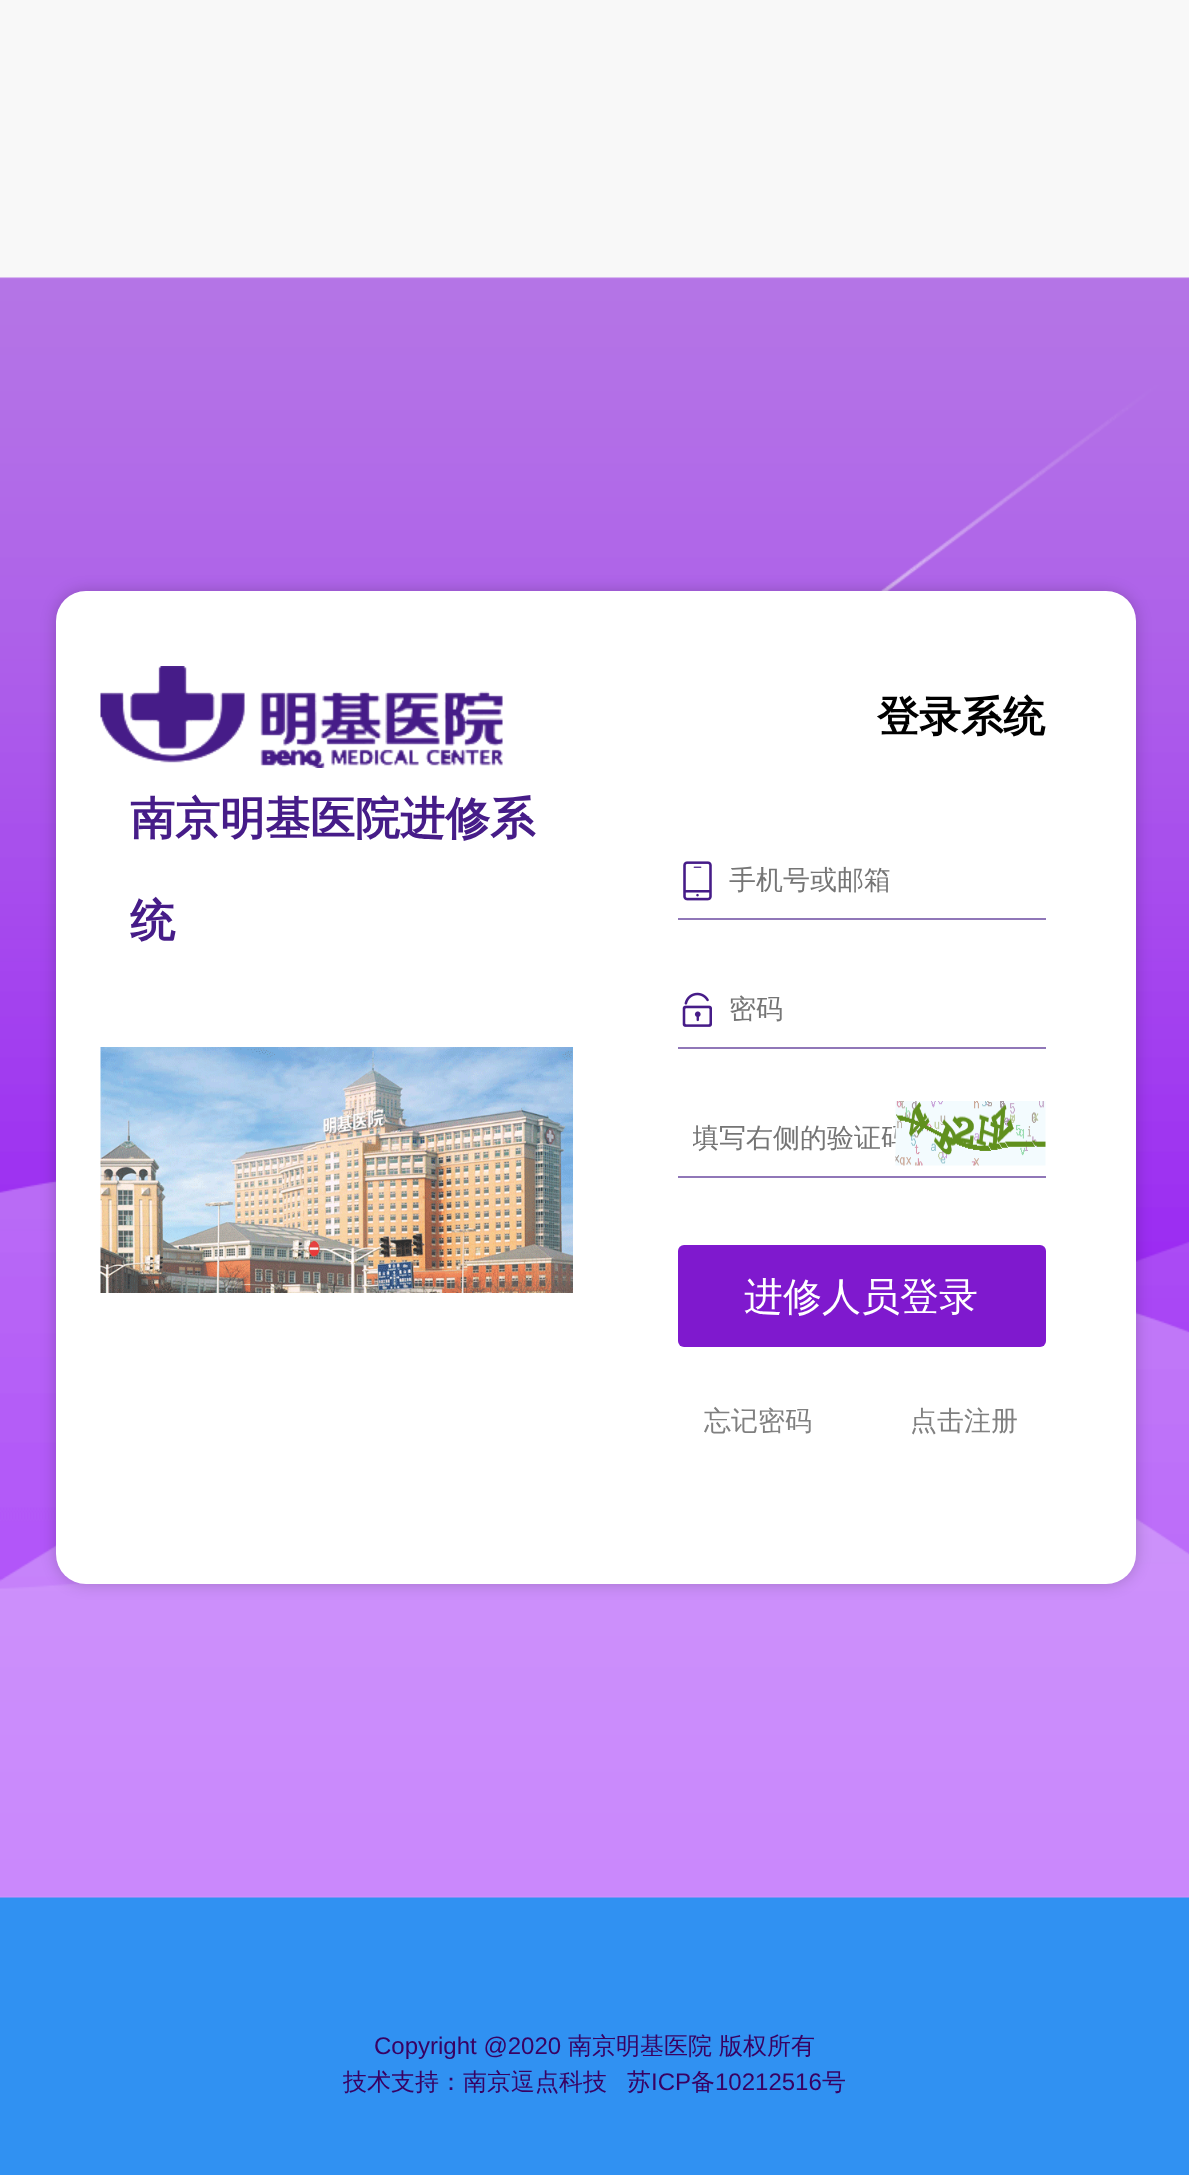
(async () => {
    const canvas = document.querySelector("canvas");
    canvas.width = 1189;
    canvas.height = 2175;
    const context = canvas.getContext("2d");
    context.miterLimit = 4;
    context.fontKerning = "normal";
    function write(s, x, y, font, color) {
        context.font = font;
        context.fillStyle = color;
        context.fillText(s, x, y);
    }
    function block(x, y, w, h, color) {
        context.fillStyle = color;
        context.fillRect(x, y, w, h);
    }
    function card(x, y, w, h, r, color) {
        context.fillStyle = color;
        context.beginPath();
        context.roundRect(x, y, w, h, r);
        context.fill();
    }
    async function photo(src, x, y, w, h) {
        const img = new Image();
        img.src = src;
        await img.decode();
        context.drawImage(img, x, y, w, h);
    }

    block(0, 0, 1189, 2175, "rgb(255, 255, 255)");
    await photo("media/1.png", 0, 0, 1189, 2175);
    await photo("media/2.png", 0, 277, 1189, 1621);
    context.fillStyle = "rgba(0, 0, 0, 0.2)";
    context.filter = "blur(7.5px)";
    context.beginPath();
    context.roundRect(56, 591, 1080, 993, 30);
    context.fill();
    context.filter = "none";
    card(56, 591, 1080, 993, 30, "rgb(255, 255, 255)");
    await photo("media/3.png", 100, 666, 403, 102);
    write("南京明基医院进修系", 130, 834, "bold 45px WenQuanYi Zen Hei", "rgb(70, 28, 136)");
    write("统", 130, 936, "bold 45px WenQuanYi Zen Hei", "rgb(70, 28, 136)");
    await photo("media/4.png", 100, 1047, 473, 246);
    write("登录系统", 877, 731, "bold 42px WenQuanYi Zen Hei", "rgb(0, 0, 0)");
    block(678, 918, 368, 2, "rgb(144, 119, 184)");
    await photo("media/5.png", 683, 861, 29, 40);
    write("手机号或邮箱", 729, 889, "500 27px WenQuanYi Zen Hei", "rgb(117, 117, 117)");
    block(678, 1047, 368, 2, "rgb(144, 119, 184)");
    await photo("media/6.png", 682, 992, 30, 35);
    write("密码", 729, 1018, "500 27px WenQuanYi Zen Hei", "rgb(117, 117, 117)");
    block(678, 1176, 368, 2, "rgb(144, 119, 184)");
    context.save();
    context.beginPath();
    context.rect(693, 1121, 315, 36);
    context.clip();
    write("填写右侧的验证码", 692, 1147, "500 27px WenQuanYi Zen Hei", "rgb(117, 117, 117)");
    context.restore();
    await photo("media/7.png", 895, 1101, 151, 65);
    card(678, 1245, 368, 102, 6, "rgb(127, 25, 206)");
    write("进修人员登录", 744, 1310, "500 39px WenQuanYi Zen Hei", "rgb(255, 255, 255)");
    write("忘记密码", 704, 1430, "500 27px WenQuanYi Zen Hei", "rgb(128, 128, 128)");
    write("点击注册", 910, 1430, "500 27px WenQuanYi Zen Hei", "rgb(128, 128, 128)");
    write("Copyright @2020", 374, 2054, "24px Liberation Sans", "rgb(56, 1, 98)");
    write("南京明基医院", 568, 2054, "500 24px WenQuanYi Zen Hei", "rgb(56, 1, 98)");
    write("版权所有", 719, 2054, "500 24px WenQuanYi Zen Hei", "rgb(56, 1, 98)");
    write("技术支持：南京逗点科技", 343, 2090, "500 24px WenQuanYi Zen Hei", "rgb(56, 1, 98)");
    write("苏", 627, 2090, "500 24px WenQuanYi Zen Hei", "rgb(56, 1, 98)");
    write("ICP", 651, 2090, "24px Liberation Sans", "rgb(56, 1, 98)");
    write("备", 691, 2090, "500 24px WenQuanYi Zen Hei", "rgb(56, 1, 98)");
    write("10212516", 715, 2090, "24px Liberation Sans", "rgb(56, 1, 98)");
    write("号", 822, 2090, "500 24px WenQuanYi Zen Hei", "rgb(56, 1, 98)");
})();
